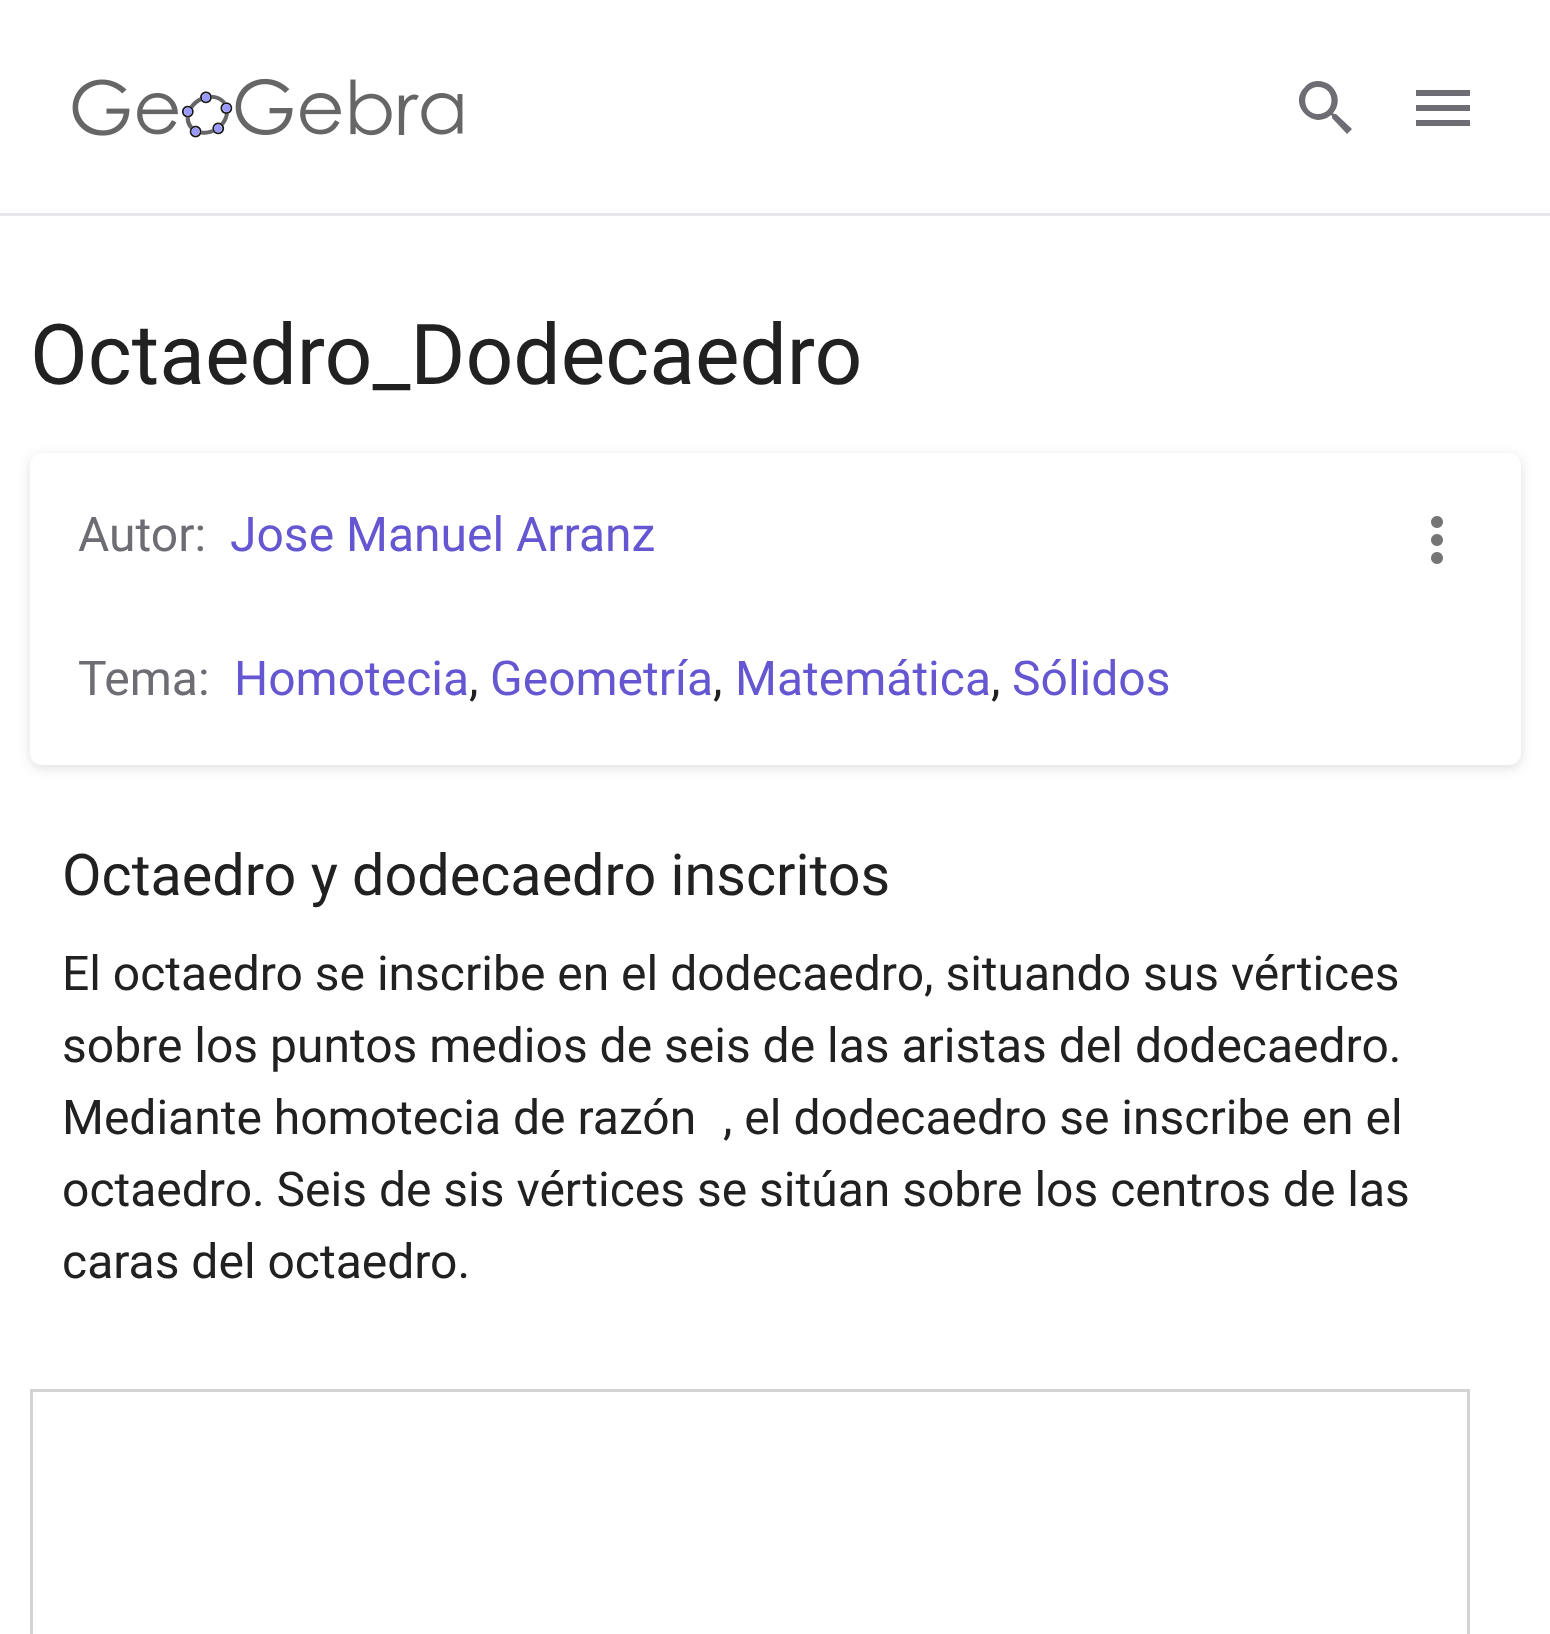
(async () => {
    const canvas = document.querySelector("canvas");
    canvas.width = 1550;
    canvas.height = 1634;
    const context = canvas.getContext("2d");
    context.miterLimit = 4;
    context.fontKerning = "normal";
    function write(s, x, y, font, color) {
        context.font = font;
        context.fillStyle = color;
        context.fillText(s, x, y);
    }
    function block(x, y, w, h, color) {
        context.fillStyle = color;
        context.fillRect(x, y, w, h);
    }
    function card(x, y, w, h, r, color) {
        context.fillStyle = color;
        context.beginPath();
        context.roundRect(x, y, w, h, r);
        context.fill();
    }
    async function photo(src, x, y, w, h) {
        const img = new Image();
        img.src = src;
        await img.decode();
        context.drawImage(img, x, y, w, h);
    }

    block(0, 0, 1550, 1634, "rgb(255, 255, 255)");
    block(0, 213, 1550, 3, "rgb(230, 230, 235)");
    await photo("media/1.png", 72, 78, 391, 60);
    context.fillStyle = "rgb(110, 109, 115)";
    context.beginPath();
    context.moveTo(1318, 81);
    context.bezierCurveTo(1335, 81, 1344, 101, 1333, 113);
    context.lineTo(1334, 114);
    context.lineTo(1336, 114);
    context.lineTo(1352, 129);
    context.lineTo(1347, 134);
    context.lineTo(1332, 118);
    context.lineTo(1332, 116);
    context.lineTo(1331, 115);
    context.bezierCurveTo(1313, 131, 1287, 104, 1305, 87);
    context.bezierCurveTo(1308, 83, 1313, 81, 1318, 81);
    context.moveTo(1318, 87);
    context.bezierCurveTo(1301, 87, 1301, 114, 1318, 114);
    context.bezierCurveTo(1336, 114, 1336, 87, 1318, 87);
    context.closePath();
    context.fill();
    context.beginPath();
    context.moveTo(1416, 90);
    context.lineTo(1470, 90);
    context.lineTo(1470, 96);
    context.lineTo(1416, 96);
    context.lineTo(1416, 90);
    context.moveTo(1416, 105);
    context.lineTo(1470, 105);
    context.lineTo(1470, 111);
    context.lineTo(1416, 111);
    context.lineTo(1416, 105);
    context.moveTo(1416, 120);
    context.lineTo(1470, 120);
    context.lineTo(1470, 126);
    context.lineTo(1416, 126);
    context.closePath();
    context.fill();
    write("Octaedro_Dodecaedro", 30, 384, "84px Roboto", "rgb(33, 33, 33)");
    context.fillStyle = "rgba(28, 28, 31, 0.14)";
    context.filter = "blur(6px)";
    context.beginPath();
    context.roundRect(30, 456, 1491, 312, 12);
    context.fill();
    context.filter = "none";
    card(30, 453, 1491, 312, 12, "rgb(255, 255, 255)");
    write("Autor:", 78, 551, "48px Roboto", "rgb(110, 109, 115)");
    write("Jose Manuel Arranz", 230, 551, "48px Roboto", "rgb(101, 87, 210)");
    write("Tema:", 78, 695, "48px Roboto", "rgb(110, 109, 115)");
    write("Homotecia", 234, 695, "48px Roboto", "rgb(101, 87, 210)");
    write(",", 469, 695, "48px Roboto", "rgb(33, 33, 33)");
    write("Geometría", 490, 695, "48px Roboto", "rgb(101, 87, 210)");
    write(",", 713, 695, "48px Roboto", "rgb(33, 33, 33)");
    write("Matemática", 735, 695, "48px Roboto", "rgb(101, 87, 210)");
    write(",", 991, 695, "48px Roboto", "rgb(33, 33, 33)");
    write("Sólidos", 1012, 695, "48px Roboto", "rgb(101, 87, 210)");
    await photo("media/2.png", 1431, 516, 12, 48);
    write("Octaedro y dodecaedro inscritos", 62, 895, "57.5px Roboto", "rgb(33, 33, 33)");
    write("El octaedro se inscribe en el dodecaedro, situando sus vértices", 62, 990, "48px Roboto", "rgb(33, 33, 33)");
    write("sobre los puntos medios de seis de las aristas del dodecaedro.", 62, 1062, "48px Roboto", "rgb(33, 33, 33)");
    write("Mediante homotecia de razón", 62, 1134, "48px Roboto", "rgb(33, 33, 33)");
    write(", el dodecaedro se inscribe en el", 723, 1134, "48px Roboto", "rgb(33, 33, 33)");
    write("octaedro. Seis de sis vértices se sitúan sobre los centros de las", 62, 1206, "48px Roboto", "rgb(33, 33, 33)");
    write("caras del octaedro.", 62, 1278, "48px Roboto", "rgb(33, 33, 33)");
    context.strokeStyle = "rgb(211, 211, 211)";
    context.lineWidth = 3;
    context.strokeRect(31.5, 1390.5, 1437, 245);
})();
